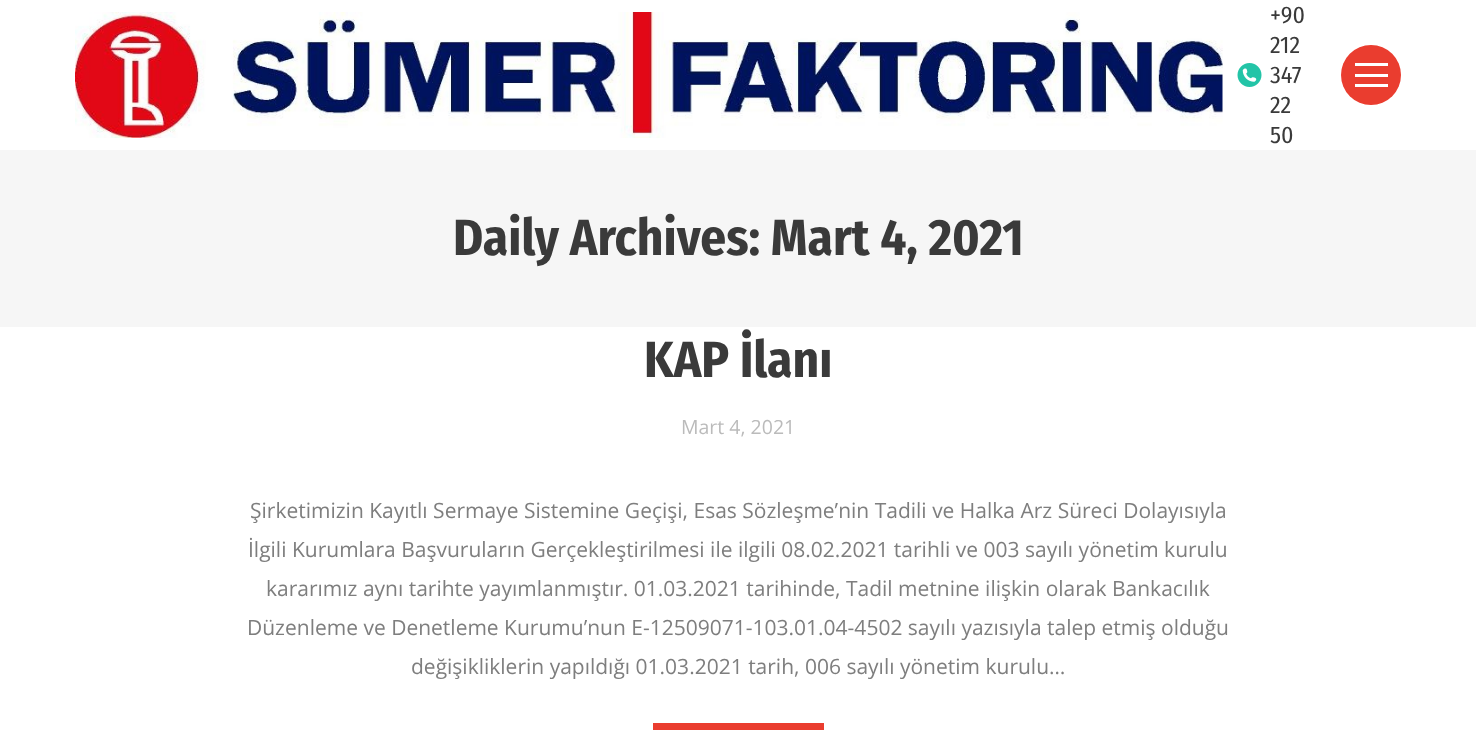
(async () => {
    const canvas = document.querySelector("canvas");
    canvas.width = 1476;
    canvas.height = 730;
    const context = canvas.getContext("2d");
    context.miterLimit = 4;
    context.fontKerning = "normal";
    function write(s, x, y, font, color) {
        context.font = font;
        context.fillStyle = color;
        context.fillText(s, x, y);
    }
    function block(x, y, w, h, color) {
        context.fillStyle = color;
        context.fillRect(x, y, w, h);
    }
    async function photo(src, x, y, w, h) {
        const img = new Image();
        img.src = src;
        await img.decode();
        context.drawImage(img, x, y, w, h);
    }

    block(0, 0, 1476, 730, "rgb(255, 255, 255)");
    await photo("media/1.png", 75, 12, 1148, 126);
    write("+90", 1270, 23, "24px Fira Sans Condensed", "rgb(58, 58, 58)");
    write("212", 1270, 53, "24px Fira Sans Condensed", "rgb(58, 58, 58)");
    await photo("media/2.png", 1237, 63, 25, 24);
    write("347", 1270, 83, "24px Fira Sans Condensed", "rgb(58, 58, 58)");
    write("22", 1270, 113, "24px Fira Sans Condensed", "rgb(58, 58, 58)");
    write("50", 1270, 143, "24px Fira Sans Condensed", "rgb(58, 58, 58)");
    context.fillStyle = "rgb(234, 61, 47)";
    context.beginPath();
    context.arc(1371, 75, 30, 0, Math.PI * 2);
    context.fill();
    block(1355, 63, 33, 3, "rgb(255, 255, 255)");
    block(1355, 74, 33, 3, "rgb(255, 255, 255)");
    block(1355, 84, 33, 3, "rgb(255, 255, 255)");
    block(0, 150, 1476, 177, "rgb(246, 246, 246)");
    write("Daily Archives: Mart 4, 2021", 453, 255, "bold 51px Fira Sans Condensed", "rgb(58, 58, 58)");
    write("KAP İlanı", 644, 377, "bold 51px Fira Sans Condensed", "rgb(58, 58, 58)");
    write("Mart 4, 2021", 681, 434, "19.5px Open Sans", "rgb(187, 187, 187)");
    write("Şirketimizin Kayıtlı Sermaye Sistemine Geçişi, Esas Sözleşme’nin Tadili ve Halka Arz Süreci Dolayısıyla", 250, 518, "21px Open Sans", "rgb(126, 126, 126)");
    write("İlgili Kurumlara Başvuruların Gerçekleştirilmesi ile ilgili 08.02.2021 tarihli ve 003 sayılı yönetim kurulu", 248, 557, "21px Open Sans", "rgb(126, 126, 126)");
    write("kararımız aynı tarihte yayımlanmıştır. 01.03.2021 tarihinde, Tadil metnine ilişkin olarak Bankacılık", 266, 596, "21px Open Sans", "rgb(126, 126, 126)");
    write("Düzenleme ve Denetleme Kurumu’nun E-12509071-103.01.04-4502 sayılı yazısıyla talep etmiş olduğu", 247, 635, "21px Open Sans", "rgb(126, 126, 126)");
    write("değişikliklerin yapıldığı 01.03.2021 tarih, 006 sayılı yönetim kurulu…", 411, 674, "21px Open Sans", "rgb(126, 126, 126)");
    block(653, 723, 171, 7, "rgb(234, 61, 47)");
})();
